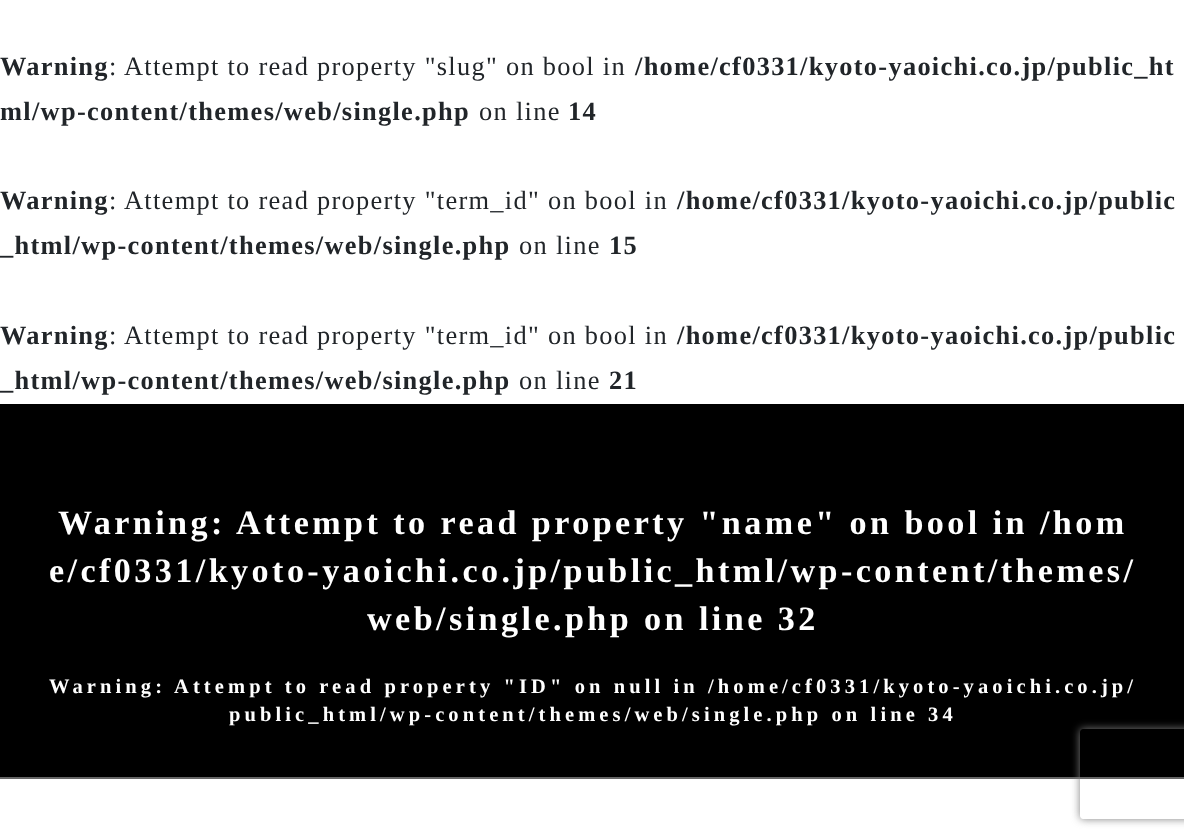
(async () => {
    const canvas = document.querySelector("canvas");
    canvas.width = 1184;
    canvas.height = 839;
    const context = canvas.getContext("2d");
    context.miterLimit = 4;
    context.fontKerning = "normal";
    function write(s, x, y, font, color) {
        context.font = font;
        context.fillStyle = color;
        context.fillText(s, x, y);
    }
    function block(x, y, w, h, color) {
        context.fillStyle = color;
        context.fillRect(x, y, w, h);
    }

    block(0, 0, 1184, 839, "rgb(255, 255, 255)");
    context.letterSpacing = "1.3px";
    write("Warning", 0, 75, "bold 26.4px Liberation Serif", "rgb(33, 37, 41)");
    write(":", 109, 75, "26.4px Liberation Serif", "rgb(33, 37, 41)");
    write("Attempt to read property \"slug\" on bool in", 124, 75, "26.4px Liberation Serif", "rgb(33, 37, 41)");
    write("/home/cf0331/kyoto-yaoichi.co.jp/public_ht", 635, 75, "bold 26.4px Liberation Serif", "rgb(33, 37, 41)");
    write("ml/wp-content/themes/web/single.php", 0, 120, "bold 26.4px Liberation Serif", "rgb(33, 37, 41)");
    write("on line", 479, 120, "26.4px Liberation Serif", "rgb(33, 37, 41)");
    write("14", 568, 120, "bold 26.4px Liberation Serif", "rgb(33, 37, 41)");
    write("Warning", 0, 209, "bold 26.4px Liberation Serif", "rgb(33, 37, 41)");
    write(":", 109, 209, "26.4px Liberation Serif", "rgb(33, 37, 41)");
    write("Attempt to read property \"term_id\" on bool in", 124, 209, "26.4px Liberation Serif", "rgb(33, 37, 41)");
    write("/home/cf0331/kyoto-yaoichi.co.jp/public", 677, 209, "bold 26.4px Liberation Serif", "rgb(33, 37, 41)");
    write("_html/wp-content/themes/web/single.php", 0, 254, "bold 26.4px Liberation Serif", "rgb(33, 37, 41)");
    write("on line", 519, 254, "26.4px Liberation Serif", "rgb(33, 37, 41)");
    write("15", 609, 254, "bold 26.4px Liberation Serif", "rgb(33, 37, 41)");
    write("Warning", 0, 344, "bold 26.4px Liberation Serif", "rgb(33, 37, 41)");
    write(":", 109, 344, "26.4px Liberation Serif", "rgb(33, 37, 41)");
    write("Attempt to read property \"term_id\" on bool in", 124, 344, "26.4px Liberation Serif", "rgb(33, 37, 41)");
    write("/home/cf0331/kyoto-yaoichi.co.jp/public", 677, 344, "bold 26.4px Liberation Serif", "rgb(33, 37, 41)");
    write("_html/wp-content/themes/web/single.php", 0, 389, "bold 26.4px Liberation Serif", "rgb(33, 37, 41)");
    write("on line", 519, 389, "26.4px Liberation Serif", "rgb(33, 37, 41)");
    write("21", 609, 389, "bold 26.4px Liberation Serif", "rgb(33, 37, 41)");
    block(0, 404, 1184, 373, "rgb(0, 0, 0)");
    block(0, 777, 1184, 2, "rgb(102, 102, 102)");
    context.letterSpacing = "3.42px";
    write("Warning:", 58, 534, "bold 34.15px Liberation Serif", "rgb(255, 255, 255)");
    write("Attempt to read property \"name\" on bool in /hom", 236, 534, "bold 34.15px Liberation Serif", "rgb(255, 255, 255)");
    write("e/cf0331/kyoto-yaoichi.co.jp/public_html/wp-content/themes/", 49, 582, "bold 34.15px Liberation Serif", "rgb(255, 255, 255)");
    write("web/single.php on line 32", 367, 630, "bold 34.15px Liberation Serif", "rgb(255, 255, 255)");
    context.letterSpacing = "4.1px";
    write("Warning:", 49, 693, "bold 20.5px Liberation Serif", "rgb(255, 255, 255)");
    write("Attempt to read property \"ID\" on null in /home/cf0331/kyoto-yaoichi.co.jp/", 174, 693, "bold 20.5px Liberation Serif", "rgb(255, 255, 255)");
    write("public_html/wp-content/themes/web/single.php on line 34", 229, 721, "bold 20.5px Liberation Serif", "rgb(255, 255, 255)");
    context.save();
    context.beginPath();
    context.moveTo(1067, 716);
    context.lineTo(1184, 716);
    context.lineTo(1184, 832);
    context.lineTo(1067, 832);
    context.closePath();
    context.moveTo(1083, 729);
    context.lineTo(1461, 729);
    context.bezierCurveTo(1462.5, 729, 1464, 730.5, 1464, 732);
    context.lineTo(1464, 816);
    context.bezierCurveTo(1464, 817.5, 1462.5, 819, 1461, 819);
    context.lineTo(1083, 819);
    context.bezierCurveTo(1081.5, 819, 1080, 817.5, 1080, 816);
    context.lineTo(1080, 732);
    context.bezierCurveTo(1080, 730.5, 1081.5, 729, 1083, 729);
    context.closePath();
    context.clip("evenodd");
    context.fillStyle = "rgb(128, 128, 128)";
    context.filter = "blur(4px)";
    context.beginPath();
    context.roundRect(1080, 729, 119, 90, 3);
    context.fill();
    context.filter = "none";
    context.restore();
})();
